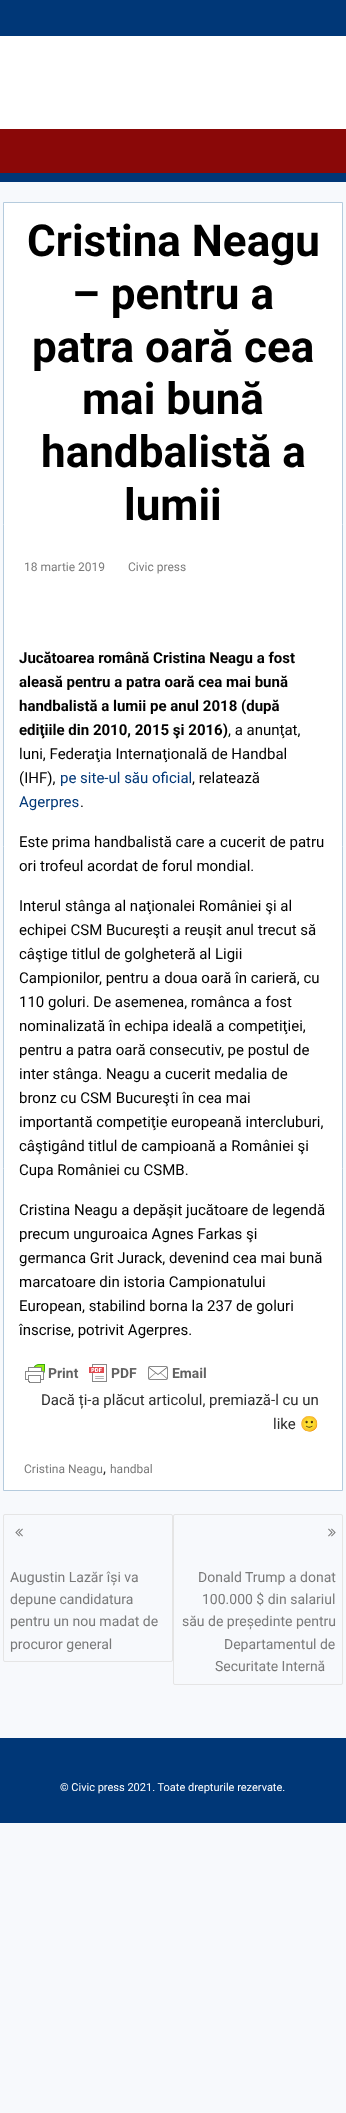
(async () => {
    const canvas = document.querySelector("canvas");
    canvas.width = 346;
    canvas.height = 2113;
    const context = canvas.getContext("2d");
    context.miterLimit = 4;
    context.fontKerning = "normal";
    function write(s, x, y, font, color) {
        context.font = font;
        context.fillStyle = color;
        context.fillText(s, x, y);
    }
    function block(x, y, w, h, color) {
        context.fillStyle = color;
        context.fillRect(x, y, w, h);
    }
    async function photo(src, x, y, w, h) {
        const img = new Image();
        img.src = src;
        await img.decode();
        context.drawImage(img, x, y, w, h);
    }

    block(0, 0, 346, 2113, "rgb(247, 249, 252)");
    block(0, 0, 346, 36, "rgb(0, 55, 119)");
    block(0, 36, 346, 93, "rgb(255, 255, 255)");
    block(0, 129, 346, 44, "rgb(138, 8, 8)");
    context.save();
    context.beginPath();
    context.rect(0, 129, 346, 48);
    context.clip();
    context.fillStyle = "rgb(0, 55, 119)";
    context.beginPath();
    context.moveTo(-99, 30);
    context.lineTo(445, 30);
    context.lineTo(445, 276);
    context.lineTo(-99, 276);
    context.closePath();
    context.moveTo(-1, 123);
    context.lineTo(345, 123);
    context.bezierCurveTo(346, 123, 346, 123, 346, 124);
    context.lineTo(346, 172);
    context.bezierCurveTo(346, 173, 346, 173, 345, 173);
    context.lineTo(-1, 173);
    context.bezierCurveTo(-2, 173, -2, 173, -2, 172);
    context.lineTo(-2, 124);
    context.bezierCurveTo(-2, 123, -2, 123, -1, 123);
    context.closePath();
    context.fill("evenodd");
    context.restore();
    block(0, 177, 346, 5, "rgb(0, 55, 119)");
    context.fillStyle = "rgb(255, 255, 255)";
    context.beginPath();
    context.rect(3.5, 202.5, 339, 1288);
    context.fill();
    context.strokeStyle = "rgb(181, 203, 221)";
    context.stroke();
    write("Cristina Neagu", 27, 256, "bold 44px Roboto", "rgb(0, 0, 0)");
    write("– pentru a", 72, 309, "bold 44px Roboto", "rgb(0, 0, 0)");
    write("patra oară cea", 32, 362, "bold 44px Roboto", "rgb(0, 0, 0)");
    write("mai bună", 82, 414, "bold 44px Roboto", "rgb(0, 0, 0)");
    write("handbalistă a", 41, 467, "bold 44px Roboto", "rgb(0, 0, 0)");
    write("lumii", 124, 520, "bold 44px Roboto", "rgb(0, 0, 0)");
    write("18 martie 2019", 24, 571, "12px Roboto", "rgb(122, 122, 122)");
    write("Civic press", 128, 571, "12px Roboto", "rgb(122, 122, 122)");
    write("Jucătoarea română Cristina Neagu a fost", 19, 663, "bold 15px Roboto", "rgb(0, 0, 0)");
    write("aleasă pentru a patra oară cea mai bună", 19, 687, "bold 15px Roboto", "rgb(0, 0, 0)");
    write("handbalistă a lumii pe anul 2018 (după", 19, 711, "bold 15px Roboto", "rgb(0, 0, 0)");
    write("ediţiile din 2010, 2015 şi 2016)", 19, 735, "bold 15px Roboto", "rgb(0, 0, 0)");
    write(", a anunţat,", 228, 735, "15px Roboto", "rgb(0, 0, 0)");
    write("luni, Federaţia Internaţională de Handbal", 19, 759, "15px Roboto", "rgb(0, 0, 0)");
    write("(IHF),", 19, 783, "15px Roboto", "rgb(0, 0, 0)");
    write("pe site-ul său oficial", 60, 783, "15px Roboto", "rgb(0, 55, 119)");
    write(", relatează", 192, 783, "15px Roboto", "rgb(0, 0, 0)");
    write("Agerpres", 19, 807, "15px Roboto", "rgb(0, 55, 119)");
    write(".", 80, 807, "15px Roboto", "rgb(0, 0, 0)");
    write("Este prima handbalistă care a cucerit de patru", 19, 847, "15px Roboto", "rgb(0, 0, 0)");
    write("ori trofeul acordat de forul mondial.", 19, 871, "15px Roboto", "rgb(0, 0, 0)");
    write("Interul stânga al naţionalei României şi al", 19, 911, "15px Roboto", "rgb(0, 0, 0)");
    write("echipei CSM Bucureşti a reuşit anul trecut să", 19, 935, "15px Roboto", "rgb(0, 0, 0)");
    write("câştige titlul de golgheteră al Ligii", 19, 959, "15px Roboto", "rgb(0, 0, 0)");
    write("Campionilor, pentru a doua oară în carieră, cu", 19, 983, "15px Roboto", "rgb(0, 0, 0)");
    write("110 goluri. De asemenea, românca a fost", 19, 1007, "15px Roboto", "rgb(0, 0, 0)");
    write("nominalizată în echipa ideală a competiţiei,", 19, 1031, "15px Roboto", "rgb(0, 0, 0)");
    write("pentru a patra oară consecutiv, pe postul de", 19, 1055, "15px Roboto", "rgb(0, 0, 0)");
    write("inter stânga. Neagu a cucerit medalia de", 19, 1079, "15px Roboto", "rgb(0, 0, 0)");
    write("bronz cu CSM Bucureşti în cea mai", 19, 1103, "15px Roboto", "rgb(0, 0, 0)");
    write("importantă competiţie europeană intercluburi,", 19, 1127, "15px Roboto", "rgb(0, 0, 0)");
    write("câştigând titlul de campioană a României şi", 19, 1151, "15px Roboto", "rgb(0, 0, 0)");
    write("Cupa României cu CSMB.", 19, 1175, "15px Roboto", "rgb(0, 0, 0)");
    write("Cristina Neagu a depăşit jucătoare de legendă", 19, 1215, "15px Roboto", "rgb(0, 0, 0)");
    write("precum unguroaica Agnes Farkas şi", 19, 1239, "15px Roboto", "rgb(0, 0, 0)");
    write("germanca Grit Jurack, devenind cea mai bună", 19, 1263, "15px Roboto", "rgb(0, 0, 0)");
    write("marcatoare din istoria Campionatului", 19, 1287, "15px Roboto", "rgb(0, 0, 0)");
    write("European, stabilind borna la 237 de goluri", 19, 1311, "15px Roboto", "rgb(0, 0, 0)");
    write("înscrise, potrivit Agerpres.", 19, 1335, "15px Roboto", "rgb(0, 0, 0)");
    await photo("media/1.png", 25, 1364, 181, 19);
    write("Dacă ți-a plăcut articolul, premiază-l cu un", 41, 1405, "15px Roboto", "rgb(45, 45, 45)");
    write("like", 273, 1429, "15px Roboto", "rgb(45, 45, 45)");
    write("🙂", 300, 1429, "15px Noto Color Emoji", "rgb(45, 45, 45)");
    write("Cristina Neagu", 24, 1473, "12px Roboto", "rgb(122, 122, 122)");
    write(",", 103, 1473, "15px Roboto", "rgb(45, 45, 45)");
    write("handbal", 110, 1473, "12px Roboto", "rgb(122, 122, 122)");
    context.beginPath();
    context.roundRect(3.5, 1514.5, 169, 147, 1.5);
    context.strokeStyle = "rgb(229, 229, 229)";
    context.stroke();
    await photo("media/2.png", 15, 1528, 8, 9);
    write("Augustin Lazăr își va", 10, 1582, "14px Roboto", "rgb(122, 122, 122)");
    write("depune candidatura", 10, 1604, "14px Roboto", "rgb(122, 122, 122)");
    write("pentru un nou madat de", 10, 1626, "14px Roboto", "rgb(122, 122, 122)");
    write("procuror general", 10, 1649, "14px Roboto", "rgb(122, 122, 122)");
    context.beginPath();
    context.roundRect(173.5, 1514.5, 169, 170, 1.5);
    context.stroke();
    await photo("media/3.png", 328, 1528, 8, 9);
    write("Donald Trump a donat", 198, 1582, "14px Roboto", "rgb(122, 122, 122)");
    write("100.000 $ din salariul", 202, 1604, "14px Roboto", "rgb(122, 122, 122)");
    write("său de președinte pentru", 182, 1626, "14px Roboto", "rgb(122, 122, 122)");
    write("Departamentul de", 224, 1649, "14px Roboto", "rgb(122, 122, 122)");
    write("Securitate Internă", 215, 1671, "14px Roboto", "rgb(122, 122, 122)");
    block(0, 1738, 346, 85, "rgb(0, 55, 119)");
    write("© Civic press 2021. Toate drepturile rezervate.", 60, 1791, "11px Roboto", "rgb(255, 255, 255)");
})();
